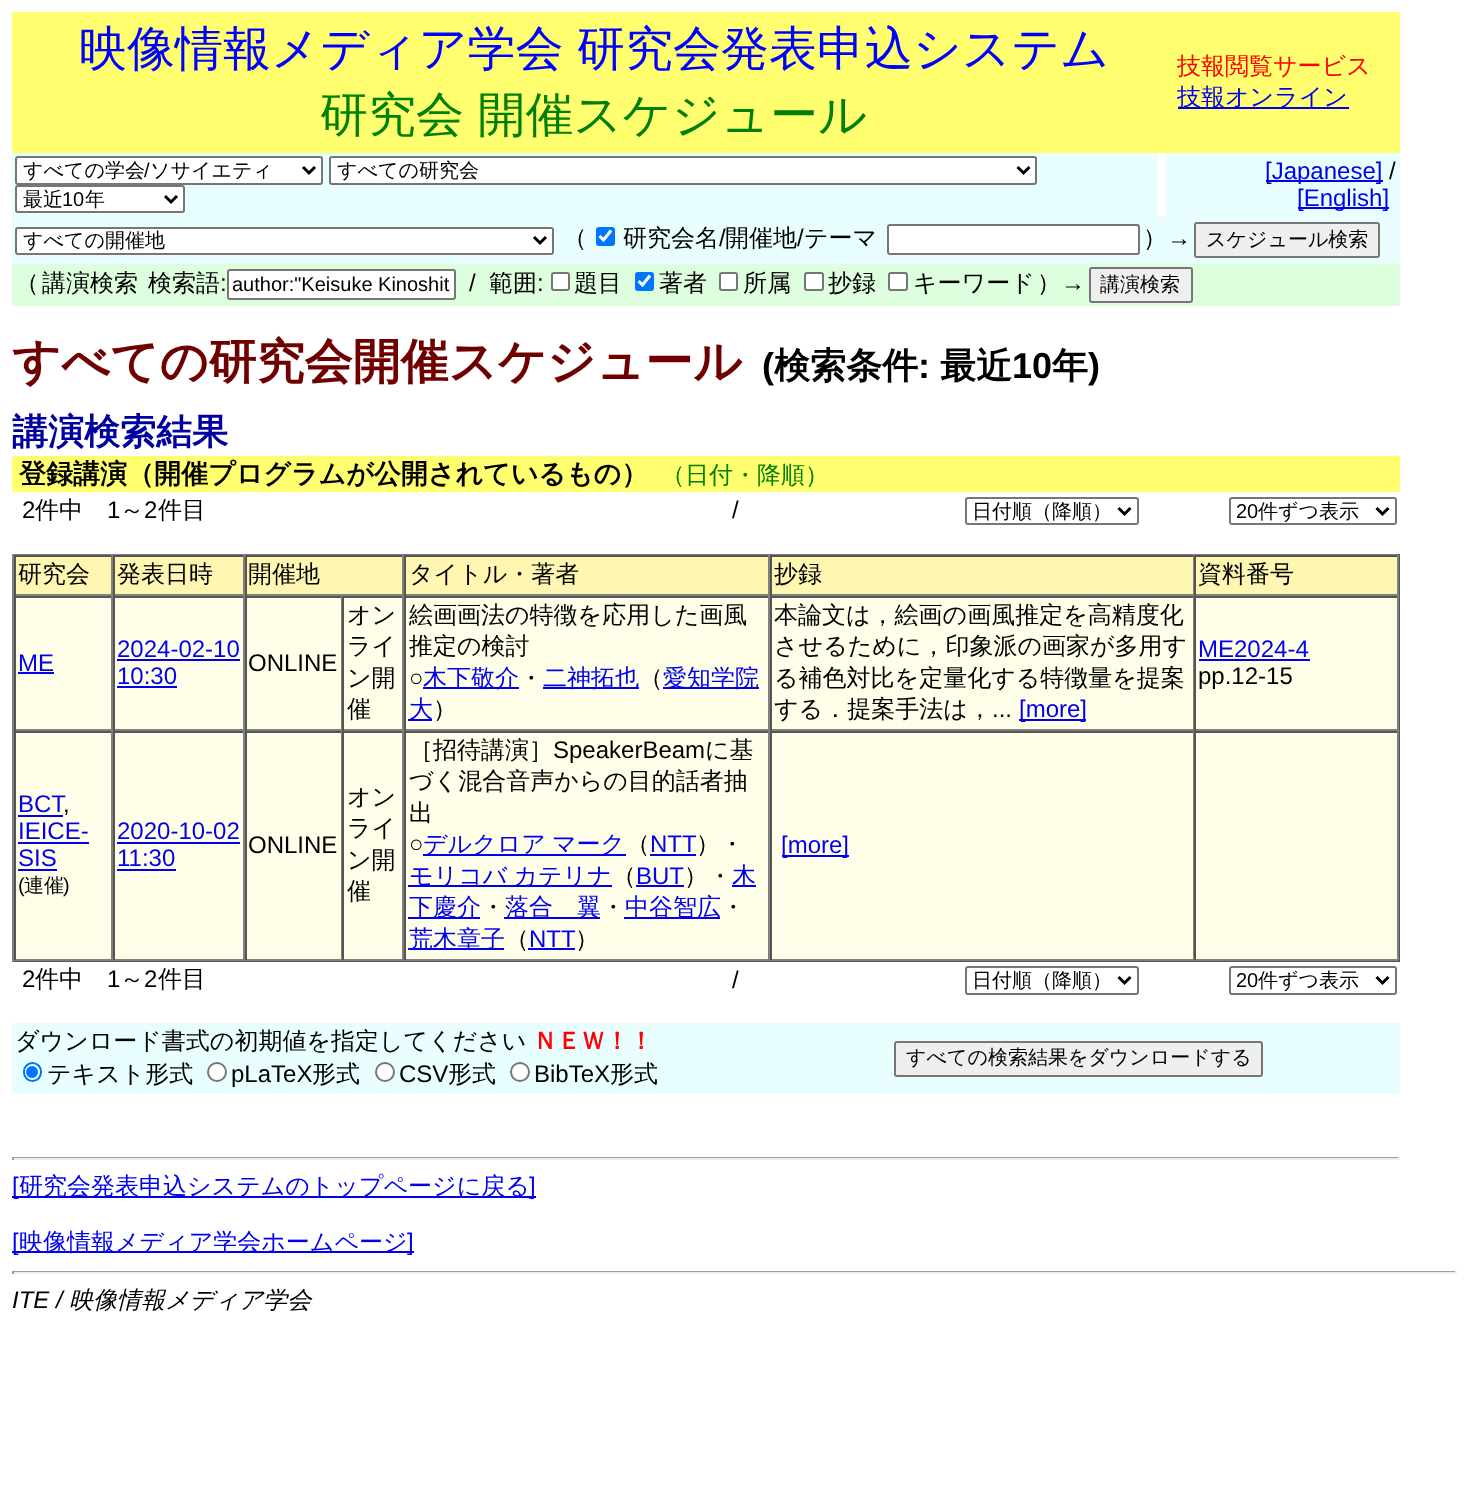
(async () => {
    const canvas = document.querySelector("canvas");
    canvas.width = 1468;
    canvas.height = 1486;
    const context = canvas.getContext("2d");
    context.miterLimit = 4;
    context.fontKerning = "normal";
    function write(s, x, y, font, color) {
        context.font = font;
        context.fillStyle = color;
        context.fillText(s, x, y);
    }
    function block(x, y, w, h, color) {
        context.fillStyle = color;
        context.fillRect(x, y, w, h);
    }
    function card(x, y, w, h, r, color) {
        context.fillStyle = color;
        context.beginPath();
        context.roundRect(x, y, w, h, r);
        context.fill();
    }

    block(0, 0, 1468, 1486, "rgb(255, 255, 255)");
    block(12, 12, 1388, 141, "rgb(255, 255, 111)");
    context.wordSpacing = "-1px";
    write("映像情報メディア学会 研究会発表申込システム", 79, 65, "500 48px WenQuanYi Zen Hei", "rgb(0, 0, 255)");
    write("研究会 開催スケジュール", 320, 131, "500 48px WenQuanYi Zen Hei", "rgb(0, 128, 0)");
    context.wordSpacing = "0px";
    write("技報閲覧サービス", 1177, 74, "500 24px WenQuanYi Zen Hei", "rgb(255, 0, 0)");
    block(1178, 107, 171, 2, "rgb(0, 0, 238)");
    write("技報オンライン", 1177, 105, "500 24px WenQuanYi Zen Hei", "rgb(0, 0, 238)");
    block(12, 153, 1146, 63, "rgb(233, 255, 255)");
    context.fillStyle = "rgb(255, 255, 255)";
    context.beginPath();
    context.roundRect(16, 157, 306, 27, 2);
    context.fill();
    context.strokeStyle = "rgb(118, 118, 118)";
    context.lineWidth = 2;
    context.stroke();
    context.beginPath();
    context.moveTo(303, 167);
    context.lineTo(309, 173);
    context.lineTo(315, 167);
    context.strokeStyle = "rgb(0, 0, 0)";
    context.lineWidth = 3;
    context.stroke();
    write("すべての学会", 23, 177, "500 20px WenQuanYi Zen Hei", "rgb(0, 0, 0)");
    write("/", 144, 177, "20px Liberation Sans", "rgb(0, 0, 0)");
    write("ソサイエティ", 150, 177, "500 20px WenQuanYi Zen Hei", "rgb(0, 0, 0)");
    context.fillStyle = "rgb(255, 255, 255)";
    context.beginPath();
    context.roundRect(330, 157, 706, 27, 2);
    context.fill();
    context.strokeStyle = "rgb(118, 118, 118)";
    context.lineWidth = 2;
    context.stroke();
    context.beginPath();
    context.moveTo(1017.5, 167);
    context.lineTo(1023.5, 173);
    context.lineTo(1029.5, 167);
    context.strokeStyle = "rgb(0, 0, 0)";
    context.lineWidth = 3;
    context.stroke();
    write("すべての研究会", 337, 177, "500 20px WenQuanYi Zen Hei", "rgb(0, 0, 0)");
    context.fillStyle = "rgb(255, 255, 255)";
    context.beginPath();
    context.roundRect(16, 186, 168, 26, 2);
    context.fill();
    context.strokeStyle = "rgb(118, 118, 118)";
    context.lineWidth = 2;
    context.stroke();
    context.beginPath();
    context.moveTo(165, 196);
    context.lineTo(171, 202);
    context.lineTo(177, 196);
    context.strokeStyle = "rgb(0, 0, 0)";
    context.lineWidth = 3;
    context.stroke();
    write("最近", 23, 206, "500 20px WenQuanYi Zen Hei", "rgb(0, 0, 0)");
    write("10", 62, 206, "20px Liberation Sans", "rgb(0, 0, 0)");
    write("年", 85, 206, "500 20px WenQuanYi Zen Hei", "rgb(0, 0, 0)");
    block(1166, 153, 234, 63, "rgb(233, 255, 255)");
    block(1266, 180, 117, 2, "rgb(0, 0, 238)");
    write("[Japanese]", 1265, 179, "24px Liberation Sans", "rgb(0, 0, 238)");
    write("/", 1389, 179, "24px Liberation Sans", "rgb(0, 0, 0)");
    block(1298, 207, 91, 2, "rgb(0, 0, 238)");
    write("[English]", 1297, 206, "24px Liberation Sans", "rgb(0, 0, 238)");
    block(12, 216, 1388, 48, "rgb(233, 255, 255)");
    context.fillStyle = "rgb(255, 255, 255)";
    context.beginPath();
    context.roundRect(16, 228, 537, 26, 2);
    context.fill();
    context.strokeStyle = "rgb(118, 118, 118)";
    context.lineWidth = 2;
    context.stroke();
    context.beginPath();
    context.moveTo(534, 237);
    context.lineTo(540, 243);
    context.lineTo(546, 237);
    context.strokeStyle = "rgb(0, 0, 0)";
    context.lineWidth = 3;
    context.stroke();
    write("すべての開催地", 23, 247, "500 20px WenQuanYi Zen Hei", "rgb(0, 0, 0)");
    write("（", 563, 246, "500 24px WenQuanYi Zen Hei", "rgb(0, 0, 0)");
    card(596, 227, 19, 19, 3, "rgb(0, 117, 255)");
    context.beginPath();
    context.moveTo(599.5, 236);
    context.lineTo(603.5, 240);
    context.lineTo(611, 230.5);
    context.strokeStyle = "rgb(255, 255, 255)";
    context.lineWidth = 3.1;
    context.stroke();
    write("研究会名", 623, 246, "500 24px WenQuanYi Zen Hei", "rgb(0, 0, 0)");
    write("/", 719, 246, "24px Liberation Sans", "rgb(0, 0, 0)");
    write("開催地", 725, 246, "500 24px WenQuanYi Zen Hei", "rgb(0, 0, 0)");
    write("/", 797, 246, "24px Liberation Sans", "rgb(0, 0, 0)");
    write("テーマ", 804, 246, "500 24px WenQuanYi Zen Hei", "rgb(0, 0, 0)");
    context.fillStyle = "rgb(255, 255, 255)";
    context.beginPath();
    context.roundRect(888, 225, 251, 29, 2);
    context.fill();
    context.strokeStyle = "rgb(118, 118, 118)";
    context.lineWidth = 2;
    context.stroke();
    write("）", 1143, 246, "500 24px WenQuanYi Zen Hei", "rgb(0, 0, 0)");
    write("→", 1167, 246, "24px Liberation Sans", "rgb(0, 0, 0)");
    context.fillStyle = "rgb(239, 239, 239)";
    context.beginPath();
    context.roundRect(1195, 223, 184, 34, 2);
    context.fill();
    context.stroke();
    write("スケジュール検索", 1206, 246, "500 20px WenQuanYi Zen Hei", "rgb(0, 0, 0)");
    block(12, 264, 1388, 42, "rgb(222, 255, 222)");
    write("（", 15, 291, "500 24px WenQuanYi Zen Hei", "rgb(0, 0, 0)");
    write("講演検索", 42, 291, "500 24px WenQuanYi Zen Hei", "rgb(0, 0, 0)");
    write("検索語", 148, 291, "500 24px WenQuanYi Zen Hei", "rgb(0, 0, 0)");
    write(":", 220, 291, "24px Liberation Sans", "rgb(0, 0, 0)");
    context.fillStyle = "rgb(255, 255, 255)";
    context.beginPath();
    context.roundRect(228, 270, 227, 29, 2);
    context.fill();
    context.stroke();
    write("author:\"Keisuke Kinoshit", 232, 291, "20px Liberation Sans", "rgb(0, 0, 0)");
    write("/", 469, 291, "24px Liberation Sans", "rgb(0, 0, 0)");
    write("範囲", 489, 291, "500 24px WenQuanYi Zen Hei", "rgb(0, 0, 0)");
    write(":", 537, 291, "24px Liberation Sans", "rgb(0, 0, 0)");
    context.fillStyle = "rgb(255, 255, 255)";
    context.beginPath();
    context.roundRect(552, 273, 17, 17, 2);
    context.fill();
    context.stroke();
    write("題目", 574, 291, "500 24px WenQuanYi Zen Hei", "rgb(0, 0, 0)");
    card(635, 272, 19, 19, 3, "rgb(0, 117, 255)");
    context.beginPath();
    context.moveTo(638.5, 281);
    context.lineTo(642.5, 285);
    context.lineTo(650, 275.5);
    context.strokeStyle = "rgb(255, 255, 255)";
    context.lineWidth = 3.1;
    context.stroke();
    write("著者", 659, 291, "500 24px WenQuanYi Zen Hei", "rgb(0, 0, 0)");
    context.fillStyle = "rgb(255, 255, 255)";
    context.beginPath();
    context.roundRect(720, 273, 17, 17, 2);
    context.fill();
    context.strokeStyle = "rgb(118, 118, 118)";
    context.lineWidth = 2;
    context.stroke();
    write("所属", 743, 291, "500 24px WenQuanYi Zen Hei", "rgb(0, 0, 0)");
    context.fillStyle = "rgb(255, 255, 255)";
    context.beginPath();
    context.roundRect(805, 273, 18, 17, 2);
    context.fill();
    context.stroke();
    write("抄録", 828, 291, "500 24px WenQuanYi Zen Hei", "rgb(0, 0, 0)");
    context.fillStyle = "rgb(255, 255, 255)";
    context.beginPath();
    context.roundRect(889, 273, 18, 17, 2);
    context.fill();
    context.stroke();
    write("キーワード", 913, 291, "500 24px WenQuanYi Zen Hei", "rgb(0, 0, 0)");
    write("）", 1037, 291, "500 24px WenQuanYi Zen Hei", "rgb(0, 0, 0)");
    write("→", 1061, 291, "24px Liberation Sans", "rgb(0, 0, 0)");
    context.fillStyle = "rgb(239, 239, 239)";
    context.beginPath();
    context.roundRect(1090, 268, 102, 34, 2);
    context.fill();
    context.stroke();
    write("講演検索", 1100, 291, "500 20px WenQuanYi Zen Hei", "rgb(0, 0, 0)");
    write("すべての研究会開催スケジュール", 12, 378, "bold 48px WenQuanYi Zen Hei", "rgb(112, 0, 0)");
    write("(", 762, 378, "bold 36px Liberation Sans", "rgb(0, 0, 0)");
    write("検索条件", 774, 378, "bold 36px WenQuanYi Zen Hei", "rgb(0, 0, 0)");
    write(":", 918, 378, "bold 36px Liberation Sans", "rgb(0, 0, 0)");
    write("最近", 940, 378, "bold 36px WenQuanYi Zen Hei", "rgb(0, 0, 0)");
    write("10", 1012, 378, "bold 36px Liberation Sans", "rgb(0, 0, 0)");
    write("年", 1052, 378, "bold 36px WenQuanYi Zen Hei", "rgb(0, 0, 0)");
    write(")", 1088, 378, "bold 36px Liberation Sans", "rgb(0, 0, 0)");
    write("講演検索結果", 12, 444, "bold 36px WenQuanYi Zen Hei", "rgb(0, 0, 160)");
    block(12, 456, 1388, 36, "rgb(255, 255, 111)");
    write("登録講演（開催プログラムが公開されているもの）", 19, 483, "bold 27px WenQuanYi Zen Hei", "rgb(0, 0, 0)");
    write("（日付・降順）", 661, 483, "500 24px WenQuanYi Zen Hei", "rgb(0, 128, 0)");
    write("2", 22, 518, "24px Liberation Sans", "rgb(0, 0, 0)");
    write("件中", 35, 518, "500 24px WenQuanYi Zen Hei", "rgb(0, 0, 0)");
    write("1", 107, 518, "24px Liberation Sans", "rgb(0, 0, 0)");
    write("～", 120, 518, "500 24px WenQuanYi Zen Hei", "rgb(0, 0, 0)");
    write("2", 144, 518, "24px Liberation Sans", "rgb(0, 0, 0)");
    write("件目", 158, 518, "500 24px WenQuanYi Zen Hei", "rgb(0, 0, 0)");
    write("/", 732, 518, "24px Liberation Sans", "rgb(0, 0, 0)");
    context.beginPath();
    context.roundRect(966, 498, 172, 26, 2);
    context.stroke();
    context.beginPath();
    context.moveTo(1118.5, 508);
    context.lineTo(1124.5, 514);
    context.lineTo(1130.5, 508);
    context.strokeStyle = "rgb(0, 0, 0)";
    context.lineWidth = 3;
    context.stroke();
    write("日付順（降順）", 972, 518, "500 20px WenQuanYi Zen Hei", "rgb(0, 0, 0)");
    context.beginPath();
    context.roundRect(1230, 498, 166, 26, 2);
    context.strokeStyle = "rgb(118, 118, 118)";
    context.lineWidth = 2;
    context.stroke();
    context.beginPath();
    context.moveTo(1376.5, 508);
    context.lineTo(1382.5, 514);
    context.lineTo(1388.5, 508);
    context.strokeStyle = "rgb(0, 0, 0)";
    context.lineWidth = 3;
    context.stroke();
    write("20", 1236, 518, "20px Liberation Sans", "rgb(0, 0, 0)");
    write("件ずつ表示", 1258, 518, "500 20px WenQuanYi Zen Hei", "rgb(0, 0, 0)");
    block(12, 554, 1388, 1, "rgb(128, 128, 128)");
    block(1398, 554, 2, 408, "rgb(85, 85, 85)");
    block(12, 960, 1388, 2, "rgb(85, 85, 85)");
    block(12, 554, 2, 408, "rgb(128, 128, 128)");
    block(16, 557, 95, 37, "rgb(255, 246, 177)");
    block(14, 555, 1384, 2, "rgb(85, 85, 85)");
    block(111, 555, 2, 41, "rgb(128, 128, 128)");
    block(14, 594, 99, 2, "rgb(128, 128, 128)");
    block(14, 555, 2, 41, "rgb(85, 85, 85)");
    write("研究会", 18, 582, "500 24px WenQuanYi Zen Hei", "rgb(0, 0, 0)");
    block(115, 557, 128, 37, "rgb(255, 246, 177)");
    block(243, 555, 2, 41, "rgb(128, 128, 128)");
    block(113, 594, 132, 2, "rgb(128, 128, 128)");
    block(113, 555, 2, 41, "rgb(85, 85, 85)");
    write("発表日時", 117, 582, "500 24px WenQuanYi Zen Hei", "rgb(0, 0, 0)");
    block(247, 557, 155, 37, "rgb(255, 246, 177)");
    block(402, 555, 2, 41, "rgb(128, 128, 128)");
    block(245, 594, 159, 2, "rgb(128, 128, 128)");
    block(245, 555, 2, 41, "rgb(85, 85, 85)");
    write("開催地", 248, 582, "500 24px WenQuanYi Zen Hei", "rgb(0, 0, 0)");
    block(406, 557, 362, 37, "rgb(255, 246, 177)");
    block(768, 555, 2, 41, "rgb(128, 128, 128)");
    block(404, 594, 366, 2, "rgb(128, 128, 128)");
    block(404, 555, 2, 41, "rgb(85, 85, 85)");
    write("タイトル・著者", 409, 582, "500 24px WenQuanYi Zen Hei", "rgb(0, 0, 0)");
    block(772, 557, 421, 37, "rgb(255, 246, 177)");
    block(1193, 555, 1, 41, "rgb(128, 128, 128)");
    block(770, 594, 424, 2, "rgb(128, 128, 128)");
    block(770, 555, 2, 41, "rgb(85, 85, 85)");
    write("抄録", 774, 582, "500 24px WenQuanYi Zen Hei", "rgb(0, 0, 0)");
    block(1196, 557, 201, 37, "rgb(255, 246, 177)");
    block(1397, 555, 2, 41, "rgb(128, 128, 128)");
    block(1194, 594, 204, 2, "rgb(128, 128, 128)");
    block(1194, 555, 2, 41, "rgb(85, 85, 85)");
    write("資料番号", 1198, 582, "500 24px WenQuanYi Zen Hei", "rgb(0, 0, 0)");
    block(16, 598, 95, 131, "rgb(255, 255, 233)");
    block(14, 596, 1384, 2, "rgb(85, 85, 85)");
    block(111, 596, 2, 135, "rgb(128, 128, 128)");
    block(14, 729, 99, 2, "rgb(128, 128, 128)");
    block(14, 596, 2, 135, "rgb(85, 85, 85)");
    write("ME", 18, 671, "24px Liberation Sans", "rgb(0, 0, 238)");
    block(18, 672, 36, 2, "rgb(0, 0, 238)");
    block(115, 598, 128, 131, "rgb(255, 255, 233)");
    block(243, 596, 2, 135, "rgb(128, 128, 128)");
    block(113, 729, 132, 2, "rgb(128, 128, 128)");
    block(113, 596, 2, 135, "rgb(85, 85, 85)");
    write("2024-02-10", 117, 657, "24px Liberation Sans", "rgb(0, 0, 238)");
    block(117, 659, 123, 2, "rgb(0, 0, 238)");
    write("10:30", 117, 684, "24px Liberation Sans", "rgb(0, 0, 238)");
    block(117, 686, 60, 2, "rgb(0, 0, 238)");
    block(247, 598, 94, 131, "rgb(255, 255, 233)");
    block(341, 596, 1, 135, "rgb(128, 128, 128)");
    block(245, 729, 97, 2, "rgb(128, 128, 128)");
    block(245, 596, 2, 135, "rgb(85, 85, 85)");
    write("ONLINE", 248, 671, "24px Liberation Sans", "rgb(0, 0, 0)");
    block(344, 598, 58, 131, "rgb(255, 255, 233)");
    block(402, 596, 2, 135, "rgb(128, 128, 128)");
    block(342, 729, 62, 2, "rgb(128, 128, 128)");
    block(342, 596, 2, 135, "rgb(85, 85, 85)");
    write("オン", 347, 623, "500 24px WenQuanYi Zen Hei", "rgb(0, 0, 0)");
    write("ライ", 347, 654, "500 24px WenQuanYi Zen Hei", "rgb(0, 0, 0)");
    write("ン開", 347, 686, "500 24px WenQuanYi Zen Hei", "rgb(0, 0, 0)");
    write("催", 347, 717, "500 24px WenQuanYi Zen Hei", "rgb(0, 0, 0)");
    block(406, 598, 362, 131, "rgb(255, 255, 233)");
    block(768, 596, 2, 135, "rgb(128, 128, 128)");
    block(404, 729, 366, 2, "rgb(128, 128, 128)");
    block(404, 596, 2, 135, "rgb(85, 85, 85)");
    write("絵画画法の特徴を応用した画風", 409, 623, "500 24px WenQuanYi Zen Hei", "rgb(0, 0, 0)");
    write("推定の検討", 409, 654, "500 24px WenQuanYi Zen Hei", "rgb(0, 0, 0)");
    write("○", 409, 686, "24px Liberation Sans", "rgb(0, 0, 0)");
    block(423, 687, 96, 2, "rgb(0, 0, 238)");
    write("木下敬介", 423, 686, "500 24px WenQuanYi Zen Hei", "rgb(0, 0, 238)");
    write("・", 519, 686, "500 24px WenQuanYi Zen Hei", "rgb(0, 0, 0)");
    block(543, 687, 96, 2, "rgb(0, 0, 238)");
    write("二神拓也", 543, 686, "500 24px WenQuanYi Zen Hei", "rgb(0, 0, 238)");
    write("（", 639, 686, "500 24px WenQuanYi Zen Hei", "rgb(0, 0, 0)");
    block(663, 687, 96, 2, "rgb(0, 0, 238)");
    write("愛知学院", 663, 686, "500 24px WenQuanYi Zen Hei", "rgb(0, 0, 238)");
    block(408, 719, 24, 2, "rgb(0, 0, 238)");
    write("大", 409, 717, "500 24px WenQuanYi Zen Hei", "rgb(0, 0, 238)");
    write("）", 433, 717, "500 24px WenQuanYi Zen Hei", "rgb(0, 0, 0)");
    block(772, 598, 421, 131, "rgb(255, 255, 233)");
    block(1193, 596, 1, 135, "rgb(128, 128, 128)");
    block(770, 729, 424, 2, "rgb(128, 128, 128)");
    block(770, 596, 2, 135, "rgb(85, 85, 85)");
    write("本論文は，絵画の画風推定を高精度化", 774, 623, "500 24px WenQuanYi Zen Hei", "rgb(0, 0, 0)");
    write("させるために，印象派の画家が多用す", 774, 654, "500 24px WenQuanYi Zen Hei", "rgb(0, 0, 0)");
    write("る補色対比を定量化する特徴量を提案", 774, 686, "500 24px WenQuanYi Zen Hei", "rgb(0, 0, 0)");
    write("する．提案手法は，", 774, 717, "500 24px WenQuanYi Zen Hei", "rgb(0, 0, 0)");
    write("...", 992, 717, "24px Liberation Sans", "rgb(0, 0, 0)");
    block(1019, 719, 67, 2, "rgb(0, 0, 238)");
    write("[more]", 1019, 717, "24px Liberation Sans", "rgb(0, 0, 238)");
    block(1196, 598, 201, 131, "rgb(255, 255, 233)");
    block(1397, 596, 2, 135, "rgb(128, 128, 128)");
    block(1194, 729, 204, 2, "rgb(128, 128, 128)");
    block(1194, 596, 2, 135, "rgb(85, 85, 85)");
    write("ME2024-4", 1198, 657, "24px Liberation Sans", "rgb(0, 0, 238)");
    block(1199, 659, 111, 2, "rgb(0, 0, 238)");
    write("pp.12-15", 1198, 684, "24px Liberation Sans", "rgb(0, 0, 0)");
    block(16, 733, 95, 226, "rgb(255, 255, 233)");
    block(14, 731, 1384, 2, "rgb(85, 85, 85)");
    block(111, 731, 2, 229, "rgb(128, 128, 128)");
    block(14, 959, 99, 2, "rgb(128, 128, 128)");
    block(14, 731, 2, 229, "rgb(85, 85, 85)");
    write("BCT", 18, 812, "24px Liberation Sans", "rgb(0, 0, 238)");
    block(18, 815, 45, 2, "rgb(0, 0, 238)");
    write(",", 63, 812, "24px Liberation Sans", "rgb(0, 0, 0)");
    write("IEICE-", 18, 839, "24px Liberation Sans", "rgb(0, 0, 238)");
    block(18, 842, 71, 2, "rgb(0, 0, 238)");
    write("SIS", 18, 866, "24px Liberation Sans", "rgb(0, 0, 238)");
    block(18, 869, 39, 2, "rgb(0, 0, 238)");
    write("(", 18, 892, "20px Liberation Sans", "rgb(0, 0, 0)");
    write("連催", 24, 892, "500 20px WenQuanYi Zen Hei", "rgb(0, 0, 0)");
    write(")", 63, 892, "20px Liberation Sans", "rgb(0, 0, 0)");
    block(115, 733, 128, 226, "rgb(255, 255, 233)");
    block(243, 731, 2, 229, "rgb(128, 128, 128)");
    block(113, 959, 132, 2, "rgb(128, 128, 128)");
    block(113, 731, 2, 229, "rgb(85, 85, 85)");
    write("2020-10-02", 117, 839, "24px Liberation Sans", "rgb(0, 0, 238)");
    block(117, 842, 123, 2, "rgb(0, 0, 238)");
    write("11:30", 117, 866, "24px Liberation Sans", "rgb(0, 0, 238)");
    block(117, 869, 59, 2, "rgb(0, 0, 238)");
    block(247, 733, 94, 226, "rgb(255, 255, 233)");
    block(341, 731, 1, 229, "rgb(128, 128, 128)");
    block(245, 959, 97, 2, "rgb(128, 128, 128)");
    block(245, 731, 2, 229, "rgb(85, 85, 85)");
    write("ONLINE", 248, 853, "24px Liberation Sans", "rgb(0, 0, 0)");
    block(344, 733, 58, 226, "rgb(255, 255, 233)");
    block(402, 731, 2, 229, "rgb(128, 128, 128)");
    block(342, 959, 62, 2, "rgb(128, 128, 128)");
    block(342, 731, 2, 229, "rgb(85, 85, 85)");
    write("オン", 347, 805, "500 24px WenQuanYi Zen Hei", "rgb(0, 0, 0)");
    write("ライ", 347, 836, "500 24px WenQuanYi Zen Hei", "rgb(0, 0, 0)");
    write("ン開", 347, 868, "500 24px WenQuanYi Zen Hei", "rgb(0, 0, 0)");
    write("催", 347, 899, "500 24px WenQuanYi Zen Hei", "rgb(0, 0, 0)");
    block(406, 733, 362, 226, "rgb(255, 255, 233)");
    block(768, 731, 2, 229, "rgb(128, 128, 128)");
    block(404, 959, 366, 2, "rgb(128, 128, 128)");
    block(404, 731, 2, 229, "rgb(85, 85, 85)");
    write("［招待講演］", 409, 758, "500 24px WenQuanYi Zen Hei", "rgb(0, 0, 0)");
    write("SpeakerBeam", 553, 758, "24px Liberation Sans", "rgb(0, 0, 0)");
    write("に基", 705, 758, "500 24px WenQuanYi Zen Hei", "rgb(0, 0, 0)");
    write("づく混合音声からの目的話者抽", 409, 789, "500 24px WenQuanYi Zen Hei", "rgb(0, 0, 0)");
    write("出", 409, 821, "500 24px WenQuanYi Zen Hei", "rgb(0, 0, 0)");
    write("○", 409, 852, "24px Liberation Sans", "rgb(0, 0, 0)");
    block(423, 854, 203, 2, "rgb(0, 0, 238)");
    context.wordSpacing = "-1px";
    write("デルクロア マーク", 423, 852, "500 24px WenQuanYi Zen Hei", "rgb(0, 0, 238)");
    context.wordSpacing = "0px";
    write("（", 626, 852, "500 24px WenQuanYi Zen Hei", "rgb(0, 0, 0)");
    write("NTT", 650, 852, "24px Liberation Sans", "rgb(0, 0, 238)");
    block(650, 854, 46, 2, "rgb(0, 0, 238)");
    write("）・", 696, 852, "500 24px WenQuanYi Zen Hei", "rgb(0, 0, 0)");
    block(408, 885, 204, 2, "rgb(0, 0, 238)");
    context.wordSpacing = "-1px";
    write("モリコバ カテリナ", 409, 884, "500 24px WenQuanYi Zen Hei", "rgb(0, 0, 238)");
    context.wordSpacing = "0px";
    write("（", 612, 884, "500 24px WenQuanYi Zen Hei", "rgb(0, 0, 0)");
    write("BUT", 636, 884, "24px Liberation Sans", "rgb(0, 0, 238)");
    block(636, 885, 48, 2, "rgb(0, 0, 238)");
    write("）・", 684, 884, "500 24px WenQuanYi Zen Hei", "rgb(0, 0, 0)");
    block(732, 885, 24, 2, "rgb(0, 0, 238)");
    write("木", 732, 884, "500 24px WenQuanYi Zen Hei", "rgb(0, 0, 238)");
    block(408, 917, 72, 2, "rgb(0, 0, 238)");
    write("下慶介", 409, 915, "500 24px WenQuanYi Zen Hei", "rgb(0, 0, 238)");
    write("・", 481, 915, "500 24px WenQuanYi Zen Hei", "rgb(0, 0, 0)");
    block(504, 917, 96, 2, "rgb(0, 0, 238)");
    write("落合　翼", 505, 915, "500 24px WenQuanYi Zen Hei", "rgb(0, 0, 238)");
    write("・", 601, 915, "500 24px WenQuanYi Zen Hei", "rgb(0, 0, 0)");
    block(624, 917, 96, 2, "rgb(0, 0, 238)");
    write("中谷智広", 625, 915, "500 24px WenQuanYi Zen Hei", "rgb(0, 0, 238)");
    write("・", 721, 915, "500 24px WenQuanYi Zen Hei", "rgb(0, 0, 0)");
    block(408, 948, 96, 2, "rgb(0, 0, 238)");
    write("荒木章子", 409, 947, "500 24px WenQuanYi Zen Hei", "rgb(0, 0, 238)");
    write("（", 505, 947, "500 24px WenQuanYi Zen Hei", "rgb(0, 0, 0)");
    write("NTT", 529, 947, "24px Liberation Sans", "rgb(0, 0, 238)");
    block(528, 948, 47, 2, "rgb(0, 0, 238)");
    write("）", 575, 947, "500 24px WenQuanYi Zen Hei", "rgb(0, 0, 0)");
    block(772, 733, 421, 226, "rgb(255, 255, 233)");
    block(1193, 731, 1, 229, "rgb(128, 128, 128)");
    block(770, 959, 424, 2, "rgb(128, 128, 128)");
    block(770, 731, 2, 229, "rgb(85, 85, 85)");
    block(782, 855, 67, 2, "rgb(0, 0, 238)");
    write("[more]", 781, 853, "24px Liberation Sans", "rgb(0, 0, 238)");
    block(1196, 733, 201, 226, "rgb(255, 255, 233)");
    block(1397, 731, 2, 229, "rgb(128, 128, 128)");
    block(1194, 959, 204, 2, "rgb(128, 128, 128)");
    block(1194, 731, 2, 229, "rgb(85, 85, 85)");
    write("2", 22, 987, "24px Liberation Sans", "rgb(0, 0, 0)");
    write("件中", 35, 987, "500 24px WenQuanYi Zen Hei", "rgb(0, 0, 0)");
    write("1", 107, 987, "24px Liberation Sans", "rgb(0, 0, 0)");
    write("～", 120, 987, "500 24px WenQuanYi Zen Hei", "rgb(0, 0, 0)");
    write("2", 144, 987, "24px Liberation Sans", "rgb(0, 0, 0)");
    write("件目", 158, 987, "500 24px WenQuanYi Zen Hei", "rgb(0, 0, 0)");
    write("/", 732, 988, "24px Liberation Sans", "rgb(0, 0, 0)");
    context.beginPath();
    context.roundRect(966, 967, 172, 27, 2);
    context.strokeStyle = "rgb(118, 118, 118)";
    context.lineWidth = 2;
    context.stroke();
    context.beginPath();
    context.moveTo(1118.5, 977);
    context.lineTo(1124.5, 983);
    context.lineTo(1130.5, 977);
    context.strokeStyle = "rgb(0, 0, 0)";
    context.lineWidth = 3;
    context.stroke();
    write("日付順（降順）", 972, 987, "500 20px WenQuanYi Zen Hei", "rgb(0, 0, 0)");
    context.beginPath();
    context.roundRect(1230, 967, 166, 27, 2);
    context.strokeStyle = "rgb(118, 118, 118)";
    context.lineWidth = 2;
    context.stroke();
    context.beginPath();
    context.moveTo(1376.5, 977);
    context.lineTo(1382.5, 983);
    context.lineTo(1388.5, 977);
    context.strokeStyle = "rgb(0, 0, 0)";
    context.lineWidth = 3;
    context.stroke();
    write("20", 1236, 987, "20px Liberation Sans", "rgb(0, 0, 0)");
    write("件ずつ表示", 1258, 987, "500 20px WenQuanYi Zen Hei", "rgb(0, 0, 0)");
    block(12, 1023, 1388, 71, "rgb(233, 255, 255)");
    write("ダウンロード書式の初期値を指定してください", 15, 1049, "500 24px WenQuanYi Zen Hei", "rgb(0, 0, 0)");
    write("ＮＥＷ！！", 533, 1049, "bold 24px WenQuanYi Zen Hei", "rgb(255, 0, 0)");
    context.fillStyle = "rgb(255, 255, 255)";
    context.beginPath();
    context.roundRect(24, 1063, 17, 18, 8.5);
    context.fill();
    context.strokeStyle = "rgb(0, 117, 255)";
    context.lineWidth = 2;
    context.stroke();
    context.fillStyle = "rgb(0, 117, 255)";
    context.beginPath();
    context.arc(32, 1072, 6, 0, Math.PI * 2);
    context.fill();
    write("テキスト形式", 47, 1082, "500 24px WenQuanYi Zen Hei", "rgb(0, 0, 0)");
    context.fillStyle = "rgb(255, 255, 255)";
    context.beginPath();
    context.arc(217, 1072, 9, 0, Math.PI * 2);
    context.fill();
    context.strokeStyle = "rgb(118, 118, 118)";
    context.stroke();
    write("pLaTeX", 231, 1082, "24px Liberation Sans", "rgb(0, 0, 0)");
    write("形式", 312, 1082, "500 24px WenQuanYi Zen Hei", "rgb(0, 0, 0)");
    context.fillStyle = "rgb(255, 255, 255)";
    context.beginPath();
    context.arc(385, 1072, 9, 0, Math.PI * 2);
    context.fill();
    context.stroke();
    write("CSV", 399, 1082, "24px Liberation Sans", "rgb(0, 0, 0)");
    write("形式", 448, 1082, "500 24px WenQuanYi Zen Hei", "rgb(0, 0, 0)");
    context.fillStyle = "rgb(255, 255, 255)";
    context.beginPath();
    context.arc(520, 1072, 9, 0, Math.PI * 2);
    context.fill();
    context.stroke();
    write("BibTeX", 534, 1082, "24px Liberation Sans", "rgb(0, 0, 0)");
    write("形式", 610, 1082, "500 24px WenQuanYi Zen Hei", "rgb(0, 0, 0)");
    context.fillStyle = "rgb(239, 239, 239)";
    context.beginPath();
    context.roundRect(895, 1042, 367, 34, 2);
    context.fill();
    context.stroke();
    write("すべての検索結果をダウンロードする", 906, 1064, "500 20px WenQuanYi Zen Hei", "rgb(0, 0, 0)");
    block(12, 1157, 1388, 1, "rgb(159, 159, 159)");
    block(1398, 1157, 2, 3, "rgb(238, 238, 238)");
    block(12, 1158, 1388, 2, "rgb(238, 238, 238)");
    block(12, 1157, 2, 3, "rgb(159, 159, 159)");
    block(12, 1196, 524, 2, "rgb(0, 0, 238)");
    write("[", 12, 1194, "24px Liberation Sans", "rgb(0, 0, 238)");
    write("研究会発表申込システムのトップページに戻る", 19, 1194, "500 24px WenQuanYi Zen Hei", "rgb(0, 0, 238)");
    write("]", 529, 1194, "24px Liberation Sans", "rgb(0, 0, 238)");
    block(12, 1251, 402, 2, "rgb(0, 0, 238)");
    write("[", 12, 1250, "24px Liberation Sans", "rgb(0, 0, 238)");
    write("映像情報メディア学会ホームページ", 19, 1250, "500 24px WenQuanYi Zen Hei", "rgb(0, 0, 238)");
    write("]", 407, 1250, "24px Liberation Sans", "rgb(0, 0, 238)");
    block(12, 1271, 1445, 1, "rgb(159, 159, 159)");
    block(1455, 1271, 2, 3, "rgb(238, 238, 238)");
    block(12, 1272, 1445, 2, "rgb(238, 238, 238)");
    block(12, 1271, 2, 3, "rgb(159, 159, 159)");
    write("ITE /", 12, 1308, "italic 24px Liberation Sans", "rgb(0, 0, 0)");
    write("映像情報メディア学会", 69, 1308, "italic 500 24px WenQuanYi Zen Hei", "rgb(0, 0, 0)");
})();
